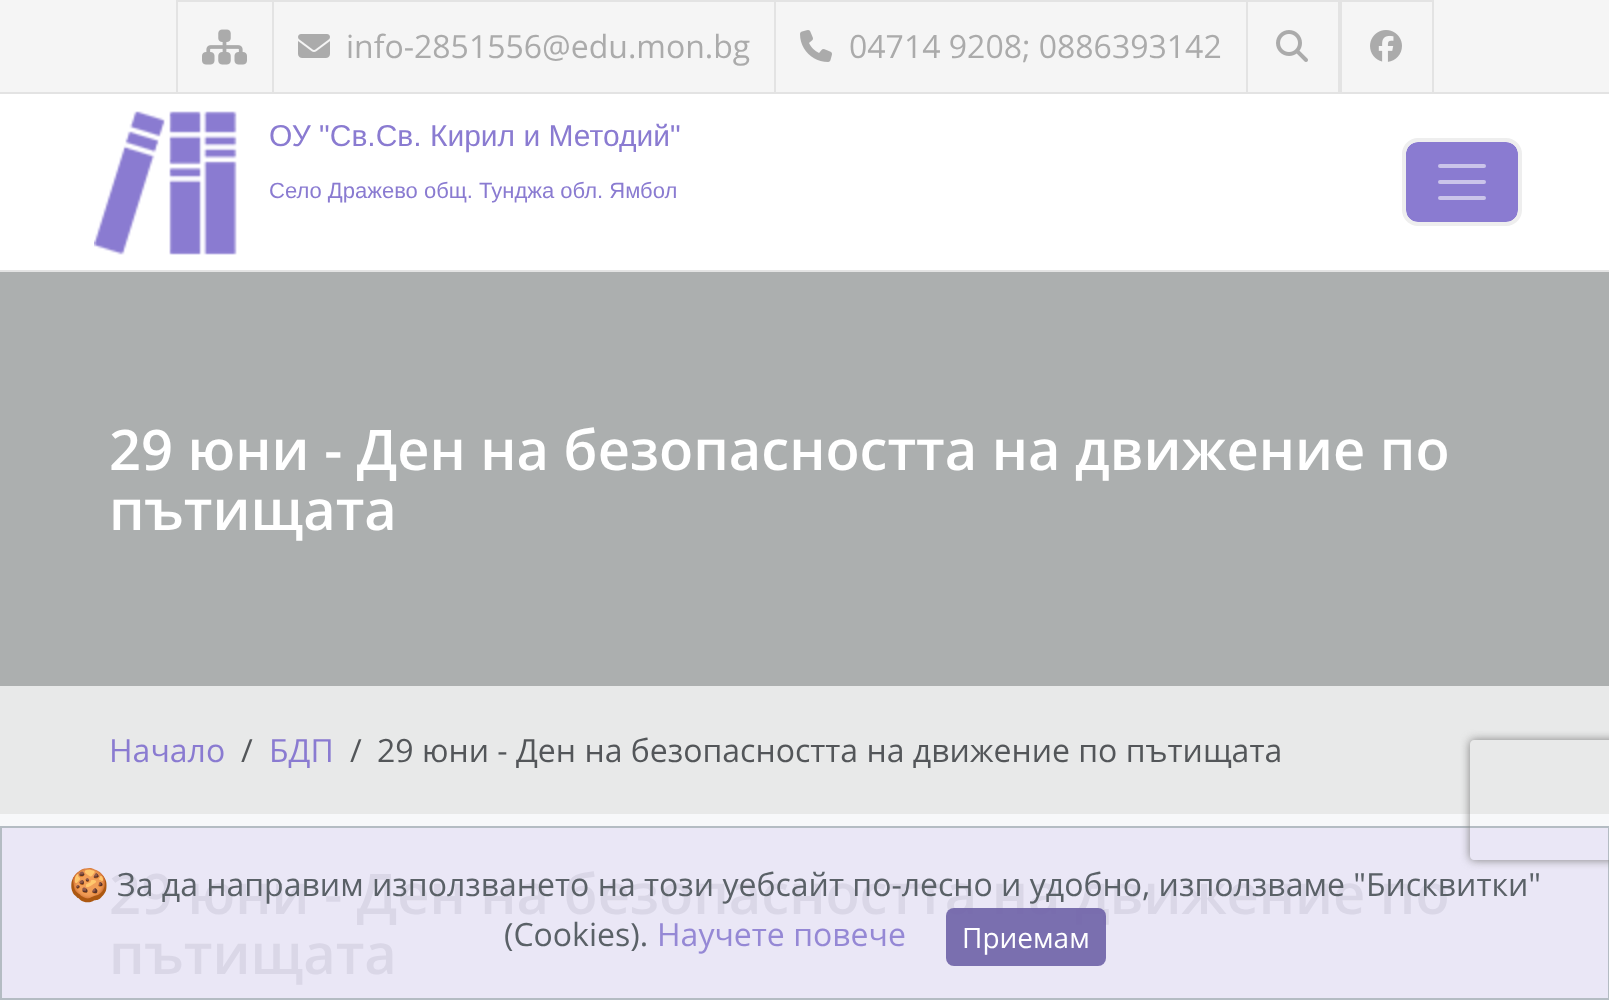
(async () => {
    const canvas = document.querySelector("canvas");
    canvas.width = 1609;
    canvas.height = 1000;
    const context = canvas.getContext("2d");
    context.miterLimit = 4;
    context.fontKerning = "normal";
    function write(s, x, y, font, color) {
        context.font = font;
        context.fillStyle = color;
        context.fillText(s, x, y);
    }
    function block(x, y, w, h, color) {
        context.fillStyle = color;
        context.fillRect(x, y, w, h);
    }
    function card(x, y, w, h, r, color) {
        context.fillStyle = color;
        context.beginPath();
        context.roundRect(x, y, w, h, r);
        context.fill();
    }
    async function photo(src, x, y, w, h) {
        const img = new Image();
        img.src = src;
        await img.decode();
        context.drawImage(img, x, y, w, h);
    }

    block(0, 0, 1609, 1000, "rgb(247, 248, 250)");
    block(2, 828, 1606, 170, "rgb(234, 231, 246)");
    block(0, 0, 1609, 92, "rgb(245, 245, 245)");
    block(1246, 0, 188, 2, "rgb(227, 227, 227)");
    block(1246, 0, 2, 94, "rgb(227, 227, 227)");
    block(774, 0, 474, 2, "rgb(227, 227, 227)");
    block(774, 0, 2, 94, "rgb(227, 227, 227)");
    block(272, 0, 504, 2, "rgb(227, 227, 227)");
    block(272, 0, 2, 94, "rgb(227, 227, 227)");
    block(176, 0, 98, 2, "rgb(227, 227, 227)");
    block(176, 0, 2, 94, "rgb(227, 227, 227)");
    await photo("media/1.png", 202, 29, 45, 36);
    await photo("media/2.png", 298, 34, 32, 24);
    write("info-2851556@edu.mon.bg", 346, 58, "32px Open Sans", "rgb(171, 171, 171)");
    await photo("media/3.png", 800, 30, 32, 32);
    write("04714 9208; 0886393142", 849, 58, "32px Open Sans", "rgb(171, 171, 171)");
    block(1338, 0, 4, 94, "rgb(227, 227, 227)");
    await photo("media/4.png", 1276, 30, 32, 32);
    block(1432, 0, 2, 94, "rgb(227, 227, 227)");
    await photo("media/5.png", 1370, 30, 32, 32);
    context.fillStyle = "rgb(255, 255, 255)";
    context.beginPath();
    context.rect(-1, 93, 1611, 178);
    context.fill();
    context.strokeStyle = "rgb(227, 227, 227)";
    context.lineWidth = 2;
    context.stroke();
    await photo("media/6.png", 94, 111, 143, 144);
    write("ОУ \"Св.Св. Кирил и Методий\"", 269, 146, "30px Liberation Sans", "rgb(138, 123, 209)");
    write("Село Дражево общ. Тунджа обл. Ямбол", 269, 198, "22px Liberation Sans", "rgb(138, 123, 209)");
    context.beginPath();
    context.roundRect(1407, 143, 110, 78, 11);
    context.fill();
    context.strokeStyle = "rgb(138, 123, 209)";
    context.stroke();
    context.beginPath();
    context.moveTo(1440, 166);
    context.lineTo(1484, 166);
    context.moveTo(1440, 182);
    context.lineTo(1484, 182);
    context.moveTo(1440, 198);
    context.lineTo(1484, 198);
    context.strokeStyle = "rgb(202, 196, 234)";
    context.lineWidth = 4;
    context.lineCap = "round";
    context.stroke();
    context.beginPath();
    context.roundRect(1404, 140, 116, 84, 14);
    context.strokeStyle = "rgb(238, 238, 238)";
    context.stroke();
    block(0, 272, 1609, 414, "rgb(172, 175, 175)");
    write("29 юни - Ден на безопасността на движение по", 109, 470, "600 56px Open Sans", "rgb(255, 255, 255)");
    write("пътищата", 109, 530, "600 56px Open Sans", "rgb(255, 255, 255)");
    block(0, 686, 1609, 128, "rgb(232, 233, 233)");
    write("Начало", 109, 762, "32px Open Sans", "rgb(138, 123, 209)");
    write("/", 241, 762, "32px Open Sans", "rgb(83, 86, 89)");
    write("БДП", 269, 762, "32px Open Sans", "rgb(138, 123, 209)");
    write("/", 350, 762, "32px Open Sans", "rgb(83, 86, 89)");
    write("29 юни - Ден на безопасността на движение по пътищата", 377, 762, "32px Open Sans", "rgb(83, 86, 89)");
    write("29 юни - Ден на безопасността на движение по", 109, 914, "600 56px Open Sans", "rgb(218, 215, 231)");
    write("пътищата", 109, 974, "600 56px Open Sans", "rgb(218, 215, 231)");
    context.strokeStyle = "rgb(180, 188, 195)";
    context.lineWidth = 2;
    context.strokeRect(1, 827, 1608, 172);
    context.save();
    context.beginPath();
    context.moveTo(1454, 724);
    context.lineTo(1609, 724);
    context.lineTo(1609, 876);
    context.lineTo(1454, 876);
    context.closePath();
    context.moveTo(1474, 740);
    context.lineTo(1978, 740);
    context.bezierCurveTo(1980, 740, 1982, 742, 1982, 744);
    context.lineTo(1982, 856);
    context.bezierCurveTo(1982, 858, 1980, 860, 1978, 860);
    context.lineTo(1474, 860);
    context.bezierCurveTo(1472, 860, 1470, 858, 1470, 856);
    context.lineTo(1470, 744);
    context.bezierCurveTo(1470, 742, 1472, 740, 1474, 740);
    context.closePath();
    context.clip("evenodd");
    context.fillStyle = "rgb(128, 128, 128)";
    context.filter = "blur(5px)";
    context.beginPath();
    context.roundRect(1470, 740, 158, 120, 4);
    context.fill();
    context.filter = "none";
    context.restore();
    write("🍪", 69, 896, "32px Noto Color Emoji", "rgb(90, 97, 103)");
    write("За да направим използването на този уебсайт по-лесно и удобно, използваме \"Бисквитки\"", 117, 896, "32px Open Sans", "rgb(90, 97, 103)");
    write("(Cookies).", 504, 946, "32px Open Sans", "rgb(90, 97, 103)");
    write("Научете повече", 657, 946, "32px Open Sans", "rgb(149, 136, 213)");
    card(946, 908, 160, 58, 8, "rgba(110, 98, 167, 0.9)");
    write("Приемам", 962, 948, "28px Open Sans", "rgb(255, 255, 255)");
})();
